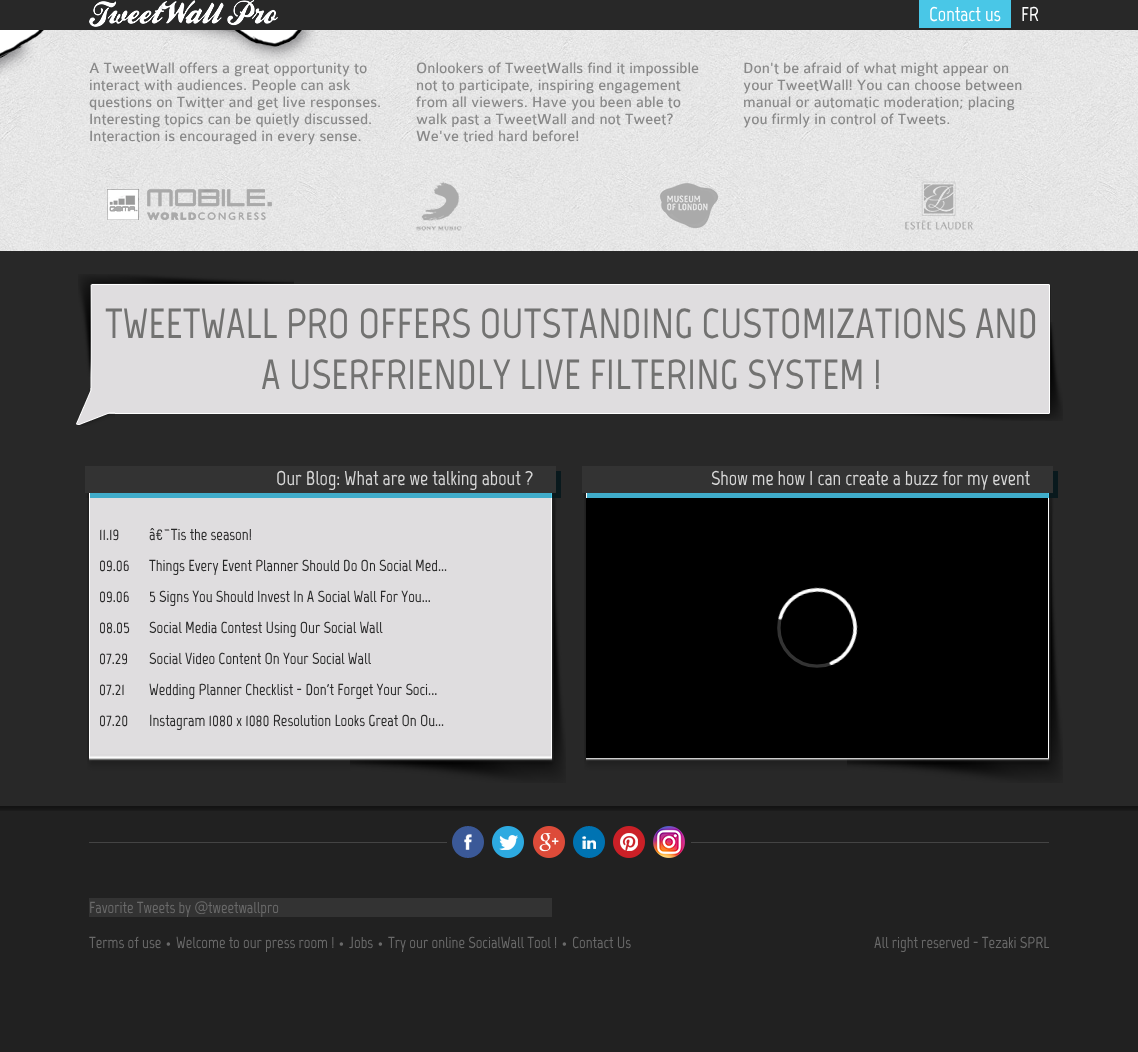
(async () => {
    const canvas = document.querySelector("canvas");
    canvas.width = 1138;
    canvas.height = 1052;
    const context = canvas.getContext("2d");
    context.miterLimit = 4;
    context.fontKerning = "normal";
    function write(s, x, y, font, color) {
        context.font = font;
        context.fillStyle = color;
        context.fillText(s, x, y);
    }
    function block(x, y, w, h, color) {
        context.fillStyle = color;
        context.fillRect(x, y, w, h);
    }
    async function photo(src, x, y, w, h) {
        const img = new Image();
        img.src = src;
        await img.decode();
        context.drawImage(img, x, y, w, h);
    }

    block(0, 0, 1138, 1052, "rgb(33, 33, 33)");
    block(0, 0, 1138, 30, "rgb(40, 40, 40)");
    await photo("media/1.png", 89, 0, 189, 27);
    block(919, 0, 92, 28, "rgb(73, 199, 231)");
    write("Contact us", 929, 21, "bold 20px Marvel", "rgb(255, 255, 255)");
    write("FR", 1021, 21, "bold 20px Marvel", "rgb(255, 255, 255)");
    await photo("media/2.png", 0, 30, 1138, 221);
    write("A TweetWall offers a great opportunity to", 89, 73, "16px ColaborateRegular", "rgb(137, 137, 137)");
    await photo("media/3.png", 0, 30, 316, 46);
    await photo("media/4.png", 0, 30, 45, 28);
    write("interact with audiences. People can ask", 89, 90, "16px ColaborateRegular", "rgb(137, 137, 137)");
    write("questions on Twitter and get live responses.", 89, 107, "16px ColaborateRegular", "rgb(137, 137, 137)");
    write("Interesting topics can be quietly discussed.", 89, 124, "16px ColaborateRegular", "rgb(137, 137, 137)");
    write("Interaction is encouraged in every sense.", 89, 141, "16px ColaborateRegular", "rgb(137, 137, 137)");
    write("Onlookers of TweetWalls find it impossible", 416, 73, "16px ColaborateRegular", "rgb(137, 137, 137)");
    write("not to participate, inspiring engagement", 416, 90, "16px ColaborateRegular", "rgb(137, 137, 137)");
    write("from all viewers. Have you been able to", 416, 107, "16px ColaborateRegular", "rgb(137, 137, 137)");
    write("walk past a TweetWall and not Tweet?", 416, 124, "16px ColaborateRegular", "rgb(137, 137, 137)");
    write("We've tried hard before!", 416, 141, "16px ColaborateRegular", "rgb(137, 137, 137)");
    write("Don't be afraid of what might appear on", 743, 73, "16px ColaborateRegular", "rgb(137, 137, 137)");
    write("your TweetWall! You can choose between", 743, 90, "16px ColaborateRegular", "rgb(137, 137, 137)");
    write("manual or automatic moderation; placing", 743, 107, "16px ColaborateRegular", "rgb(137, 137, 137)");
    write("you firmly in control of Tweets.", 743, 124, "16px ColaborateRegular", "rgb(137, 137, 137)");
    await photo("media/5.png", 107, 189, 165, 31);
    await photo("media/6.png", 416, 181, 46, 50);
    await photo("media/7.png", 660, 182, 59, 47);
    await photo("media/8.png", 905, 181, 68, 49);
    block(0, 251, 1138, 555, "rgb(40, 40, 40)");
    await photo("media/10.png", 90, 284, 961, 4);
    await photo("media/11.png", 90, 288, 961, 122);
    write("TWEETWALL PRO OFFERS OUTSTANDING CUSTOMIZATIONS AND", 105, 338, "bold 42px Marvel", "rgb(114, 114, 113)");
    write("A USERFRIENDLY LIVE FILTERING SYSTEM !", 261, 389, "bold 42px Marvel", "rgb(114, 114, 113)");
    await photo("media/9.png", 78, 274, 216, 103);
    await photo("media/12.png", 847, 322, 216, 99);
    await photo("media/13.png", 108, 410, 942, 4);
    await photo("media/14.png", 76, 388, 39, 38);
    await photo("media/15.png", 87, 493, 479, 290);
    await photo("media/16.png", 85, 466, 476, 32);
    write("Our Blog: What are we talking about ?", 276, 485, "bold 20px Marvel", "rgb(216, 216, 216)");
    write("11.19", 99, 540, "bold 16px Marvel", "rgb(40, 40, 40)");
    write("â€˜Tis the season!", 149, 540, "bold 16px Marvel", "rgb(40, 40, 40)");
    write("09.06", 99, 571, "bold 16px Marvel", "rgb(40, 40, 40)");
    write("Things Every Event Planner Should Do On Social Med...", 149, 571, "bold 16px Marvel", "rgb(40, 40, 40)");
    write("09.06", 99, 602, "bold 16px Marvel", "rgb(40, 40, 40)");
    write("5 Signs You Should Invest In A Social Wall For You...", 149, 602, "bold 16px Marvel", "rgb(40, 40, 40)");
    write("08.05", 99, 633, "bold 16px Marvel", "rgb(40, 40, 40)");
    write("Social Media Contest Using Our Social Wall", 149, 633, "bold 16px Marvel", "rgb(40, 40, 40)");
    write("07.29", 99, 664, "bold 16px Marvel", "rgb(40, 40, 40)");
    write("Social Video Content On Your Social Wall", 149, 664, "bold 16px Marvel", "rgb(40, 40, 40)");
    write("07.21", 99, 695, "bold 16px Marvel", "rgb(40, 40, 40)");
    write("Wedding Planner Checklist - Don't Forget Your Soci...", 149, 695, "bold 16px Marvel", "rgb(40, 40, 40)");
    write("07.20", 99, 726, "bold 16px Marvel", "rgb(40, 40, 40)");
    write("Instagram 1080 x 1080 Resolution Looks Great On Ou...", 149, 726, "bold 16px Marvel", "rgb(40, 40, 40)");
    await photo("media/15.png", 584, 493, 479, 290);
    await photo("media/16.png", 582, 466, 476, 32);
    write("Show me how I can create a buzz for my event", 711, 485, "bold 20px Marvel", "rgb(216, 216, 216)");
    await photo("media/17.png", 586, 498, 462, 260);
    await photo("media/18.png", 0, 806, 1138, 5);
    block(89, 842, 960, 1, "rgb(68, 68, 68)");
    block(447, 842, 244, 1, "rgb(33, 33, 33)");
    await photo("media/19.png", 452, 826, 32, 32);
    await photo("media/20.png", 492, 826, 32, 32);
    await photo("media/21.png", 533, 826, 32, 32);
    await photo("media/22.png", 573, 826, 32, 32);
    await photo("media/23.png", 613, 826, 32, 32);
    await photo("media/24.png", 653, 826, 32, 32);
    block(89, 898, 463, 19, "rgb(51, 51, 51)");
    write("Favorite Tweets by @tweetwallpro", 89, 913, "bold 16px Marvel", "rgb(106, 106, 106)");
    write("Terms of use", 89, 948, "bold 16px Marvel", "rgb(106, 106, 106)");
    write("•", 166, 948, "bold 16px Marvel", "rgb(106, 106, 106)");
    write("Welcome to our press room !", 176, 948, "bold 16px Marvel", "rgb(106, 106, 106)");
    write("•", 339, 948, "bold 16px Marvel", "rgb(106, 106, 106)");
    write("Jobs", 349, 948, "bold 16px Marvel", "rgb(106, 106, 106)");
    write("•", 378, 948, "bold 16px Marvel", "rgb(106, 106, 106)");
    write("Try our online SocialWall Tool !", 388, 948, "bold 16px Marvel", "rgb(106, 106, 106)");
    write("•", 562, 948, "bold 16px Marvel", "rgb(106, 106, 106)");
    write("Contact Us", 572, 948, "bold 16px Marvel", "rgb(106, 106, 106)");
    write("All right reserved - Tezaki SPRL", 874, 948, "bold 16px Marvel", "rgb(106, 106, 106)");
})();
